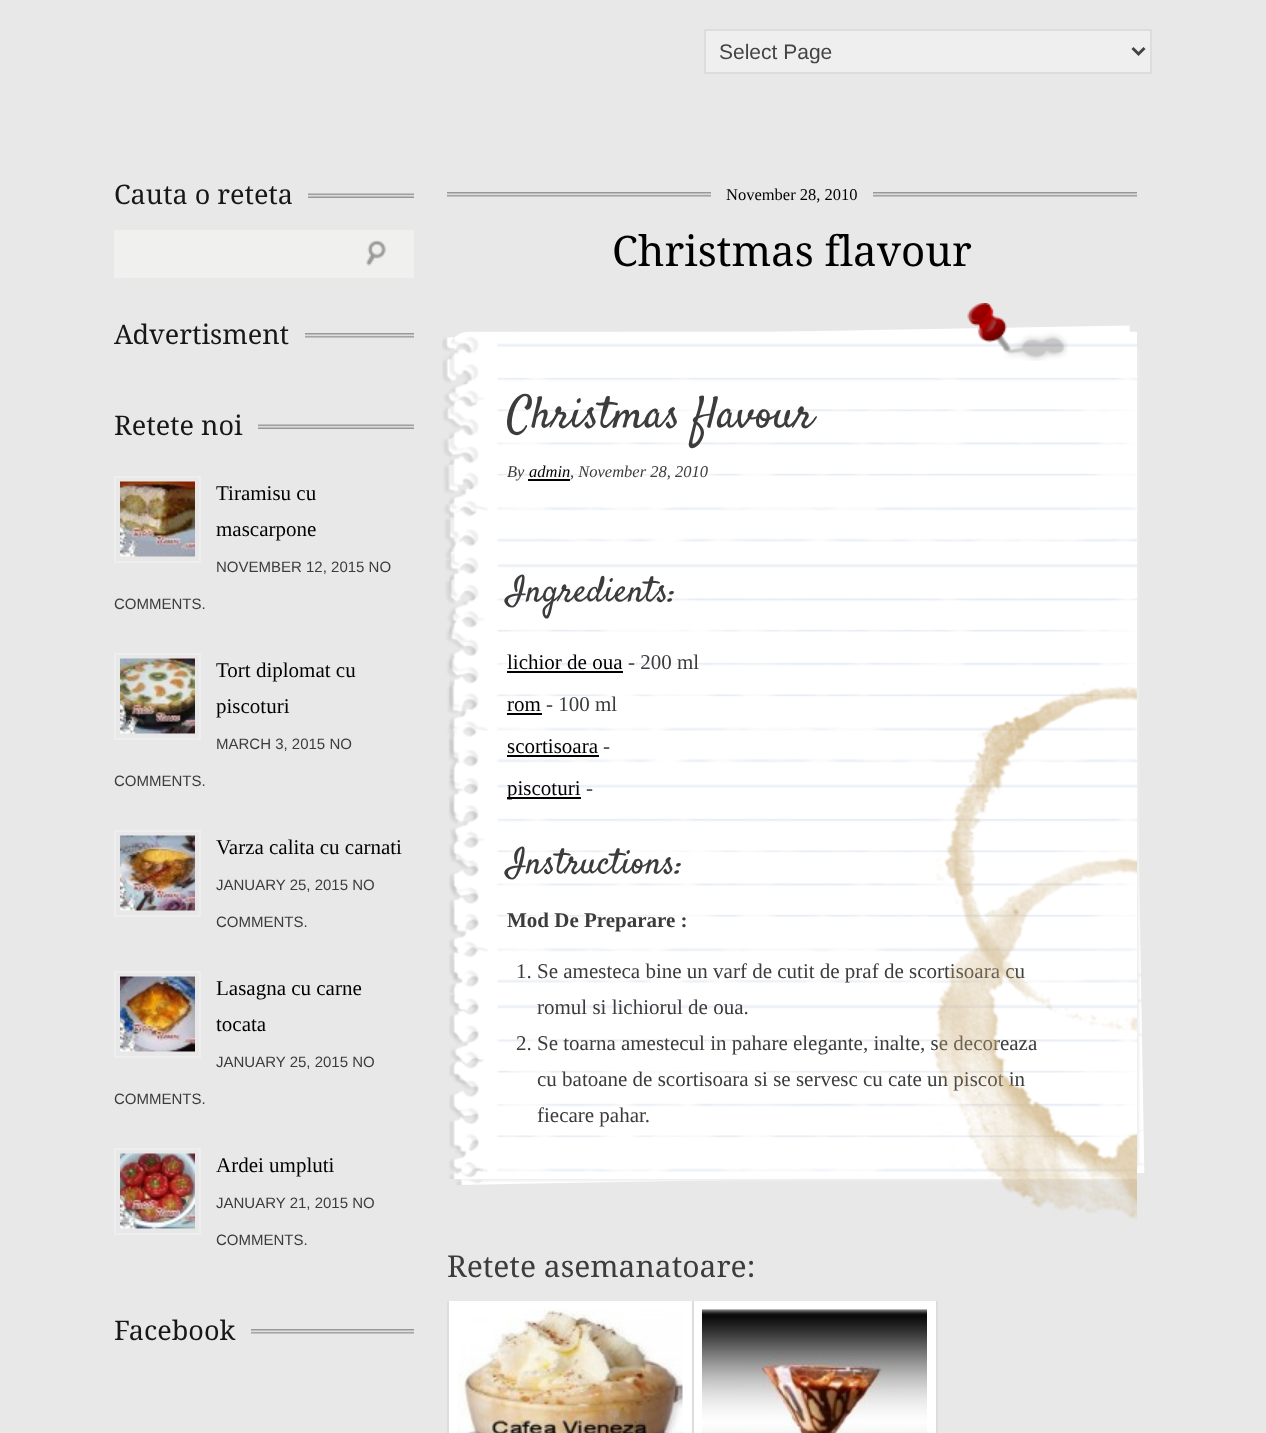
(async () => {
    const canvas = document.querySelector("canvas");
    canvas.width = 1266;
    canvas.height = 1433;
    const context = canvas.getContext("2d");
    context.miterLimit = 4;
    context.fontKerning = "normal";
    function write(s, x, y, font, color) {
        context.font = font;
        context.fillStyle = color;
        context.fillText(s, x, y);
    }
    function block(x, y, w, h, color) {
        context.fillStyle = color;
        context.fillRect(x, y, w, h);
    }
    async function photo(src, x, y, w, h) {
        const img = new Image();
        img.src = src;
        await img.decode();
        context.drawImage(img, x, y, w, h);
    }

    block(0, 0, 1266, 1433, "rgb(232, 232, 232)");
    context.fillStyle = "rgb(239, 239, 239)";
    context.beginPath();
    context.rect(705, 30, 446, 43);
    context.fill();
    context.strokeStyle = "rgb(221, 221, 221)";
    context.lineWidth = 2;
    context.stroke();
    context.beginPath();
    context.moveTo(1132.5, 48);
    context.lineTo(1138.5, 54);
    context.lineTo(1144.5, 48);
    context.strokeStyle = "rgb(68, 68, 68)";
    context.lineWidth = 3;
    context.stroke();
    write("Select Page", 719, 59, "21px Liberation Sans", "rgb(68, 68, 68)");
    await photo("media/1.png", 308, 193, 106, 5);
    write("Cauta o reteta", 114, 204, "27px Droid Serif", "rgb(23, 23, 23)");
    block(114, 230, 300, 48, "rgb(240, 240, 239)");
    await photo("media/2.png", 366, 240, 20, 26);
    await photo("media/3.png", 305, 333, 109, 5);
    write("Advertisment", 114, 344, "27px Droid Serif", "rgb(23, 23, 23)");
    await photo("media/4.png", 258, 424, 156, 5);
    write("Retete noi", 114, 435, "27px Droid Serif", "rgb(23, 23, 23)");
    context.strokeStyle = "rgb(238, 238, 238)";
    context.lineWidth = 2;
    context.strokeRect(115, 477, 85, 85);
    await photo("media/5.png", 120, 481, 75, 76);
    write("Tiramisu cu", 216, 500, "21px Liberation Serif", "rgb(0, 0, 0)");
    write("mascarpone", 216, 536, "21px Liberation Serif", "rgb(0, 0, 0)");
    write("NOVEMBER 12, 2015 NO", 216, 572, "15px Liberation Sans", "rgb(60, 60, 60)");
    write("COMMENTS.", 114, 609, "15px Liberation Sans", "rgb(60, 60, 60)");
    context.strokeRect(115, 654, 85, 85);
    await photo("media/6.png", 120, 658, 75, 76);
    write("Tort diplomat cu", 216, 677, "21px Liberation Serif", "rgb(0, 0, 0)");
    write("piscoturi", 216, 713, "21px Liberation Serif", "rgb(0, 0, 0)");
    write("MARCH 3, 2015 NO", 216, 749, "15px Liberation Sans", "rgb(60, 60, 60)");
    write("COMMENTS.", 114, 786, "15px Liberation Sans", "rgb(60, 60, 60)");
    context.strokeRect(115, 831, 85, 85);
    await photo("media/7.png", 120, 835, 75, 76);
    write("Varza calita cu carnati", 216, 854, "21px Liberation Serif", "rgb(0, 0, 0)");
    write("JANUARY 25, 2015 NO", 216, 890, "15px Liberation Sans", "rgb(60, 60, 60)");
    write("COMMENTS.", 216, 927, "15px Liberation Sans", "rgb(60, 60, 60)");
    context.strokeRect(115, 972, 85, 85);
    await photo("media/8.png", 120, 976, 75, 76);
    write("Lasagna cu carne", 216, 995, "21px Liberation Serif", "rgb(0, 0, 0)");
    write("tocata", 216, 1031, "21px Liberation Serif", "rgb(0, 0, 0)");
    write("JANUARY 25, 2015 NO", 216, 1067, "15px Liberation Sans", "rgb(60, 60, 60)");
    write("COMMENTS.", 114, 1104, "15px Liberation Sans", "rgb(60, 60, 60)");
    context.strokeRect(115, 1149, 85, 85);
    await photo("media/9.png", 120, 1153, 75, 76);
    write("Ardei umpluti", 216, 1172, "21px Liberation Serif", "rgb(0, 0, 0)");
    write("JANUARY 21, 2015 NO", 216, 1208, "15px Liberation Sans", "rgb(60, 60, 60)");
    write("COMMENTS.", 216, 1245, "15px Liberation Sans", "rgb(60, 60, 60)");
    await photo("media/10.png", 251, 1329, 163, 5);
    write("Facebook", 114, 1340, "27px Droid Serif", "rgb(23, 23, 23)");
    await photo("media/11.png", 447, 192, 690, 5);
    block(711, 192, 162, 5, "rgb(232, 232, 232)");
    write("November 28, 2010", 726, 200, "16.5px Liberation Serif", "rgb(0, 0, 0)");
    write("Christmas flavour", 612, 266, "42px Droid Serif", "rgb(0, 0, 0)");
    await photo("media/12.png", 442, 325, 703, 860);
    context.save();
    context.beginPath();
    context.moveTo(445, 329);
    context.lineTo(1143, 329);
    context.lineTo(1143, 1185);
    context.lineTo(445, 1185);
    context.closePath();
    context.moveTo(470, 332);
    context.lineTo(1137, 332);
    context.lineTo(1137, 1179);
    context.lineTo(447, 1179);
    context.lineTo(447, 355);
    context.bezierCurveTo(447, 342.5, 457.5, 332, 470, 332);
    context.closePath();
    context.clip("evenodd");
    context.fillStyle = "rgb(238, 238, 238)";
    context.filter = "blur(1px)";
    context.beginPath();
    context.roundRect(449, 333, 690, 848, 23);
    context.fill();
    context.filter = "none";
    context.restore();
    await photo("media/13.png", 449, 331, 688, 848);
    await photo("media/14.png", 967, 303, 101, 58);
    write("Christmas flavour", 507, 427, "45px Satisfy", "rgb(60, 60, 60)");
    write("By", 507, 477, "italic 16.5px Liberation Serif", "rgb(60, 60, 60)");
    write("admin", 529, 477, "italic 16.5px Liberation Serif", "rgb(0, 0, 0)");
    block(528, 479, 42, 2, "rgb(0, 0, 0)");
    write(", November 28, 2010", 570, 477, "italic 16.5px Liberation Serif", "rgb(60, 60, 60)");
    write("Ingredients:", 507, 601, "36px Satisfy", "rgb(60, 60, 60)");
    write("lichior de oua", 507, 669, "21px Liberation Serif", "rgb(0, 0, 0)");
    block(507, 671, 116, 2, "rgb(0, 0, 0)");
    write("- 200 ml", 628, 669, "21px Liberation Serif", "rgb(60, 60, 60)");
    write("rom", 507, 711, "21px Liberation Serif", "rgb(0, 0, 0)");
    block(507, 713, 35, 2, "rgb(0, 0, 0)");
    write("- 100 ml", 546, 711, "21px Liberation Serif", "rgb(60, 60, 60)");
    write("scortisoara", 507, 753, "21px Liberation Serif", "rgb(0, 0, 0)");
    block(507, 755, 92, 2, "rgb(0, 0, 0)");
    write("-", 603, 753, "21px Liberation Serif", "rgb(60, 60, 60)");
    block(507, 797, 74, 2, "rgb(0, 0, 0)");
    write("piscoturi", 507, 795, "21px Liberation Serif", "rgb(0, 0, 0)");
    write("-", 586, 795, "21px Liberation Serif", "rgb(60, 60, 60)");
    write("1. Se amesteca bine un varf de cutit de praf de scortisoara cu", 516, 978, "21px Liberation Serif", "rgb(60, 60, 60)");
    write("2. Se toarna amestecul in pahare elegante, inalte, se decoreaza", 516, 1050, "21px Liberation Serif", "rgb(60, 60, 60)");
    write("cu batoane de scortisoara si se servesc cu cate un piscot in", 537, 1086, "21px Liberation Serif", "rgb(60, 60, 60)");
    await photo("media/15.png", 933, 682, 204, 538);
    write("Instructions:", 507, 873, "36px Satisfy", "rgb(60, 60, 60)");
    write("Mod De Preparare :", 507, 927, "bold 21px Liberation Serif", "rgb(60, 60, 60)");
    write("romul si lichiorul de oua.", 537, 1014, "21px Liberation Serif", "rgb(60, 60, 60)");
    write("fiecare pahar.", 537, 1122, "21px Liberation Serif", "rgb(60, 60, 60)");
    write("Retete asemanatoare:", 447, 1277, "30px Droid Serif", "rgb(60, 60, 60)");
    block(449, 1301, 243, 132, "rgb(255, 255, 255)");
    block(447, 1301, 2, 132, "rgb(221, 221, 221)");
    await photo("media/16.png", 457, 1309, 226, 124);
    block(694, 1301, 242, 132, "rgb(255, 255, 255)");
    block(936, 1301, 2, 132, "rgb(221, 221, 221)");
    block(692, 1301, 2, 132, "rgb(221, 221, 221)");
    await photo("media/17.png", 702, 1309, 225, 124);
})();
